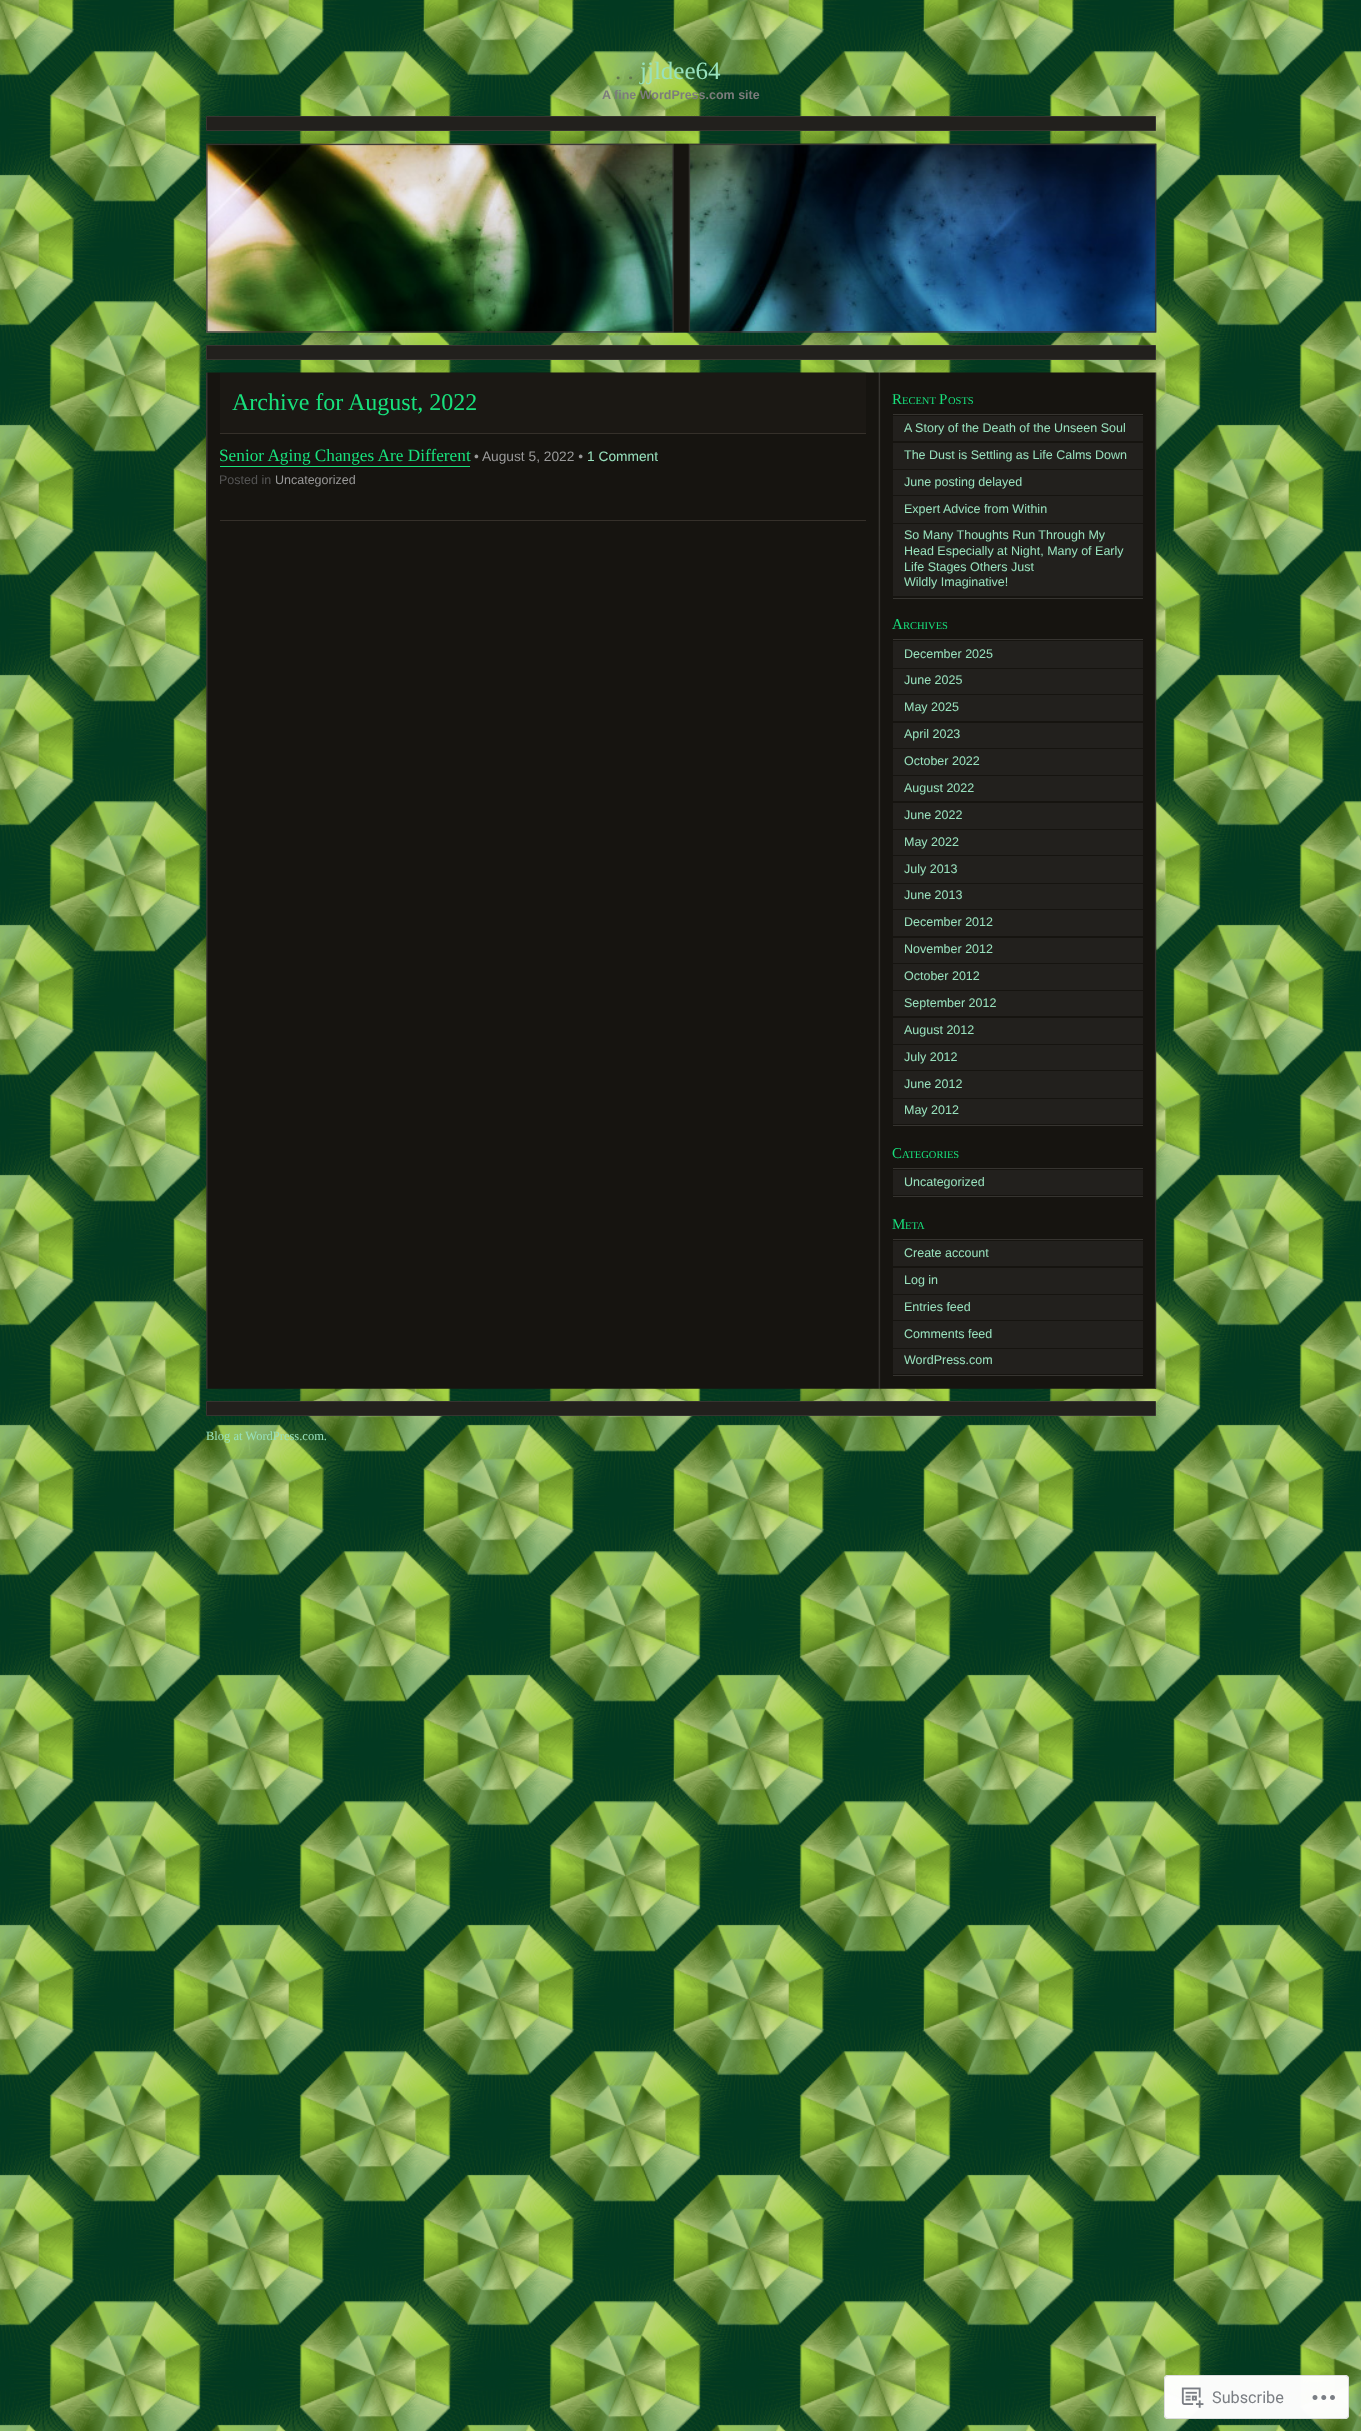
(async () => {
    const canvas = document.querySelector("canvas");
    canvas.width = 1361;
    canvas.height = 2431;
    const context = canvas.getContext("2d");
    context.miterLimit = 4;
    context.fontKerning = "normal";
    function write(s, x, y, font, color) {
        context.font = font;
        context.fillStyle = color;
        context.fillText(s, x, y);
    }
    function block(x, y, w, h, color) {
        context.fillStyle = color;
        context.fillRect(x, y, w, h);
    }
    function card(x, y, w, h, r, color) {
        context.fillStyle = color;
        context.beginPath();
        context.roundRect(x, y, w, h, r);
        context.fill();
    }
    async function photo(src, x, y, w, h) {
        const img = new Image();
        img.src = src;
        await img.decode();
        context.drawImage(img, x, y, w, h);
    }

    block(0, 0, 1361, 2431, "rgb(255, 255, 255)");
    await photo("media/1.png", 0, 0, 1361, 2431);
    write(". .", 615, 79, "25px Liberation Serif", "rgb(99, 121, 79)");
    write("jjldee64", 640, 79, "25px Liberation Serif", "rgb(152, 225, 189)");
    write("A fine WordPress.com site", 602, 99, "bold 12.5px Liberation Sans", "rgb(124, 124, 124)");
    context.fillStyle = "rgb(34, 32, 29)";
    context.beginPath();
    context.rect(206.5, 116.5, 949, 14);
    context.fill();
    context.strokeStyle = "rgb(54, 52, 48)";
    context.stroke();
    await photo("media/2.png", 206, 143, 951, 190);
    await photo("media/3.png", 206, 143, 951, 190);
    context.beginPath();
    context.rect(206.5, 345.5, 949, 14);
    context.fill();
    context.stroke();
    await photo("media/4.png", 206, 372, 951, 1017);
    block(879, 373, 1, 173, "rgb(54, 52, 48)");
    block(206, 373, 1, 173, "rgb(54, 52, 48)");
    block(220, 373, 646, 60, "rgb(27, 24, 20)");
    block(220, 433, 646, 1, "rgb(53, 48, 42)");
    write("Archive for August, 2022", 232, 410, "24px Liberation Serif", "rgb(24, 224, 124)");
    write("Senior Aging Changes Are Different", 219, 461, "17.25px Liberation Serif", "rgb(24, 224, 124)");
    block(220, 466, 250, 1, "rgb(24, 224, 124)");
    write("• August 5, 2022 •", 474, 461, "13.75px Liberation Sans", "rgb(153, 153, 153)");
    write("1 Comment", 587, 461, "13.75px Liberation Sans", "rgb(152, 225, 189)");
    write("Posted in", 219, 484, "12.5px Liberation Sans", "rgb(85, 85, 85)");
    write("Uncategorized", 275, 484, "12.5px Liberation Sans", "rgb(153, 153, 153)");
    block(220, 520, 646, 1, "rgb(53, 48, 42)");
    block(1155, 373, 1, 1016, "rgb(54, 52, 48)");
    write("R", 892, 404, "15px Liberation Serif", "rgb(24, 224, 124)");
    write("ECENT", 902, 404, "10.5px Liberation Serif", "rgb(24, 224, 124)");
    write("P", 939, 404, "15px Liberation Serif", "rgb(24, 224, 124)");
    write("OSTS", 948, 404, "10.5px Liberation Serif", "rgb(24, 224, 124)");
    block(893, 414, 250, 1, "rgb(54, 52, 48)");
    block(893, 598, 250, 1, "rgb(54, 52, 48)");
    block(893, 416, 250, 25, "rgb(34, 32, 29)");
    write("A Story of the Death of the Unseen Soul", 904, 432, "12.5px Liberation Sans", "rgb(152, 225, 189)");
    block(893, 443, 250, 26, "rgb(34, 32, 29)");
    write("The Dust is Settling as Life Calms Down", 904, 459, "12.5px Liberation Sans", "rgb(152, 225, 189)");
    block(893, 470, 250, 25, "rgb(34, 32, 29)");
    write("June posting delayed", 904, 486, "12.5px Liberation Sans", "rgb(152, 225, 189)");
    block(893, 496, 250, 27, "rgb(34, 32, 29)");
    write("Expert Advice from Within", 904, 513, "12.5px Liberation Sans", "rgb(152, 225, 189)");
    block(893, 524, 250, 72, "rgb(34, 32, 29)");
    write("So Many Thoughts Run Through My", 904, 539, "12.5px Liberation Sans", "rgb(152, 225, 189)");
    write("Head Especially at Night, Many of Early", 904, 555, "12.5px Liberation Sans", "rgb(152, 225, 189)");
    write("Life Stages Others Just", 904, 571, "12.5px Liberation Sans", "rgb(152, 225, 189)");
    write("Wildly Imaginative!", 904, 586, "12.5px Liberation Sans", "rgb(152, 225, 189)");
    write("A", 892, 629, "15px Liberation Serif", "rgb(24, 224, 124)");
    write("RCHIVES", 903, 629, "10.5px Liberation Serif", "rgb(24, 224, 124)");
    block(893, 639, 250, 1, "rgb(54, 52, 48)");
    block(893, 1125, 250, 1, "rgb(54, 52, 48)");
    block(893, 641, 250, 27, "rgb(34, 32, 29)");
    write("December 2025", 904, 658, "12.5px Liberation Sans", "rgb(152, 225, 189)");
    block(893, 669, 250, 25, "rgb(34, 32, 29)");
    write("June 2025", 904, 684, "12.5px Liberation Sans", "rgb(152, 225, 189)");
    block(893, 695, 250, 26, "rgb(34, 32, 29)");
    write("May 2025", 904, 711, "12.5px Liberation Sans", "rgb(152, 225, 189)");
    block(893, 723, 250, 25, "rgb(34, 32, 29)");
    write("April 2023", 904, 738, "12.5px Liberation Sans", "rgb(152, 225, 189)");
    block(893, 749, 250, 26, "rgb(34, 32, 29)");
    write("October 2022", 904, 765, "12.5px Liberation Sans", "rgb(152, 225, 189)");
    block(893, 776, 250, 25, "rgb(34, 32, 29)");
    write("August 2022", 904, 792, "12.5px Liberation Sans", "rgb(152, 225, 189)");
    block(893, 803, 250, 26, "rgb(34, 32, 29)");
    write("June 2022", 904, 819, "12.5px Liberation Sans", "rgb(152, 225, 189)");
    block(893, 830, 250, 25, "rgb(34, 32, 29)");
    write("May 2022", 904, 846, "12.5px Liberation Sans", "rgb(152, 225, 189)");
    block(893, 856, 250, 27, "rgb(34, 32, 29)");
    write("July 2013", 904, 873, "12.5px Liberation Sans", "rgb(152, 225, 189)");
    block(893, 884, 250, 25, "rgb(34, 32, 29)");
    write("June 2013", 904, 899, "12.5px Liberation Sans", "rgb(152, 225, 189)");
    block(893, 910, 250, 26, "rgb(34, 32, 29)");
    write("December 2012", 904, 926, "12.5px Liberation Sans", "rgb(152, 225, 189)");
    block(893, 938, 250, 25, "rgb(34, 32, 29)");
    write("November 2012", 904, 953, "12.5px Liberation Sans", "rgb(152, 225, 189)");
    block(893, 964, 250, 26, "rgb(34, 32, 29)");
    write("October 2012", 904, 980, "12.5px Liberation Sans", "rgb(152, 225, 189)");
    block(893, 991, 250, 25, "rgb(34, 32, 29)");
    write("September 2012", 904, 1007, "12.5px Liberation Sans", "rgb(152, 225, 189)");
    block(893, 1018, 250, 26, "rgb(34, 32, 29)");
    write("August 2012", 904, 1034, "12.5px Liberation Sans", "rgb(152, 225, 189)");
    block(893, 1045, 250, 25, "rgb(34, 32, 29)");
    write("July 2012", 904, 1061, "12.5px Liberation Sans", "rgb(152, 225, 189)");
    block(893, 1071, 250, 27, "rgb(34, 32, 29)");
    write("June 2012", 904, 1088, "12.5px Liberation Sans", "rgb(152, 225, 189)");
    block(893, 1099, 250, 25, "rgb(34, 32, 29)");
    write("May 2012", 904, 1114, "12.5px Liberation Sans", "rgb(152, 225, 189)");
    write("C", 892, 1158, "15px Liberation Serif", "rgb(24, 224, 124)");
    write("ATEGORIES", 902, 1158, "10.5px Liberation Serif", "rgb(24, 224, 124)");
    block(893, 1168, 250, 1, "rgb(54, 52, 48)");
    block(893, 1196, 250, 1, "rgb(54, 52, 48)");
    block(893, 1170, 250, 25, "rgb(34, 32, 29)");
    write("Uncategorized", 904, 1186, "12.5px Liberation Sans", "rgb(152, 225, 189)");
    write("M", 892, 1229, "15px Liberation Serif", "rgb(24, 224, 124)");
    write("ETA", 905, 1229, "10.5px Liberation Serif", "rgb(24, 224, 124)");
    block(893, 1239, 250, 1, "rgb(54, 52, 48)");
    block(893, 1375, 250, 1, "rgb(54, 52, 48)");
    block(893, 1241, 250, 25, "rgb(34, 32, 29)");
    write("Create account", 904, 1257, "12.5px Liberation Sans", "rgb(152, 225, 189)");
    block(893, 1268, 250, 26, "rgb(34, 32, 29)");
    write("Log in", 904, 1284, "12.5px Liberation Sans", "rgb(152, 225, 189)");
    block(893, 1295, 250, 25, "rgb(34, 32, 29)");
    write("Entries feed", 904, 1311, "12.5px Liberation Sans", "rgb(152, 225, 189)");
    block(893, 1321, 250, 27, "rgb(34, 32, 29)");
    write("Comments feed", 904, 1338, "12.5px Liberation Sans", "rgb(152, 225, 189)");
    block(893, 1349, 250, 25, "rgb(34, 32, 29)");
    write("WordPress.com", 904, 1364, "12.5px Liberation Sans", "rgb(152, 225, 189)");
    context.fillStyle = "rgb(34, 32, 29)";
    context.beginPath();
    context.rect(206.5, 1401.5, 949, 14);
    context.fill();
    context.stroke();
    write("Blog at WordPress.com.", 206, 1440, "12.5px Liberation Serif", "rgb(152, 225, 189)");
    card(1164, 2375, 185, 44, 4, "rgba(255, 255, 255, 0.98)");
    context.beginPath();
    context.roundRect(1164.5, 2375.5, 184, 43, 3.5);
    context.strokeStyle = "rgba(220, 220, 222, 0.98)";
    context.stroke();
    await photo("media/5.png", 1181, 2387, 23, 21);
    write("Subscribe", 1212, 2403, "16.25px Roboto", "rgb(123, 127, 132)");
    await photo("media/6.png", 1312, 2395, 23, 5);
})();
